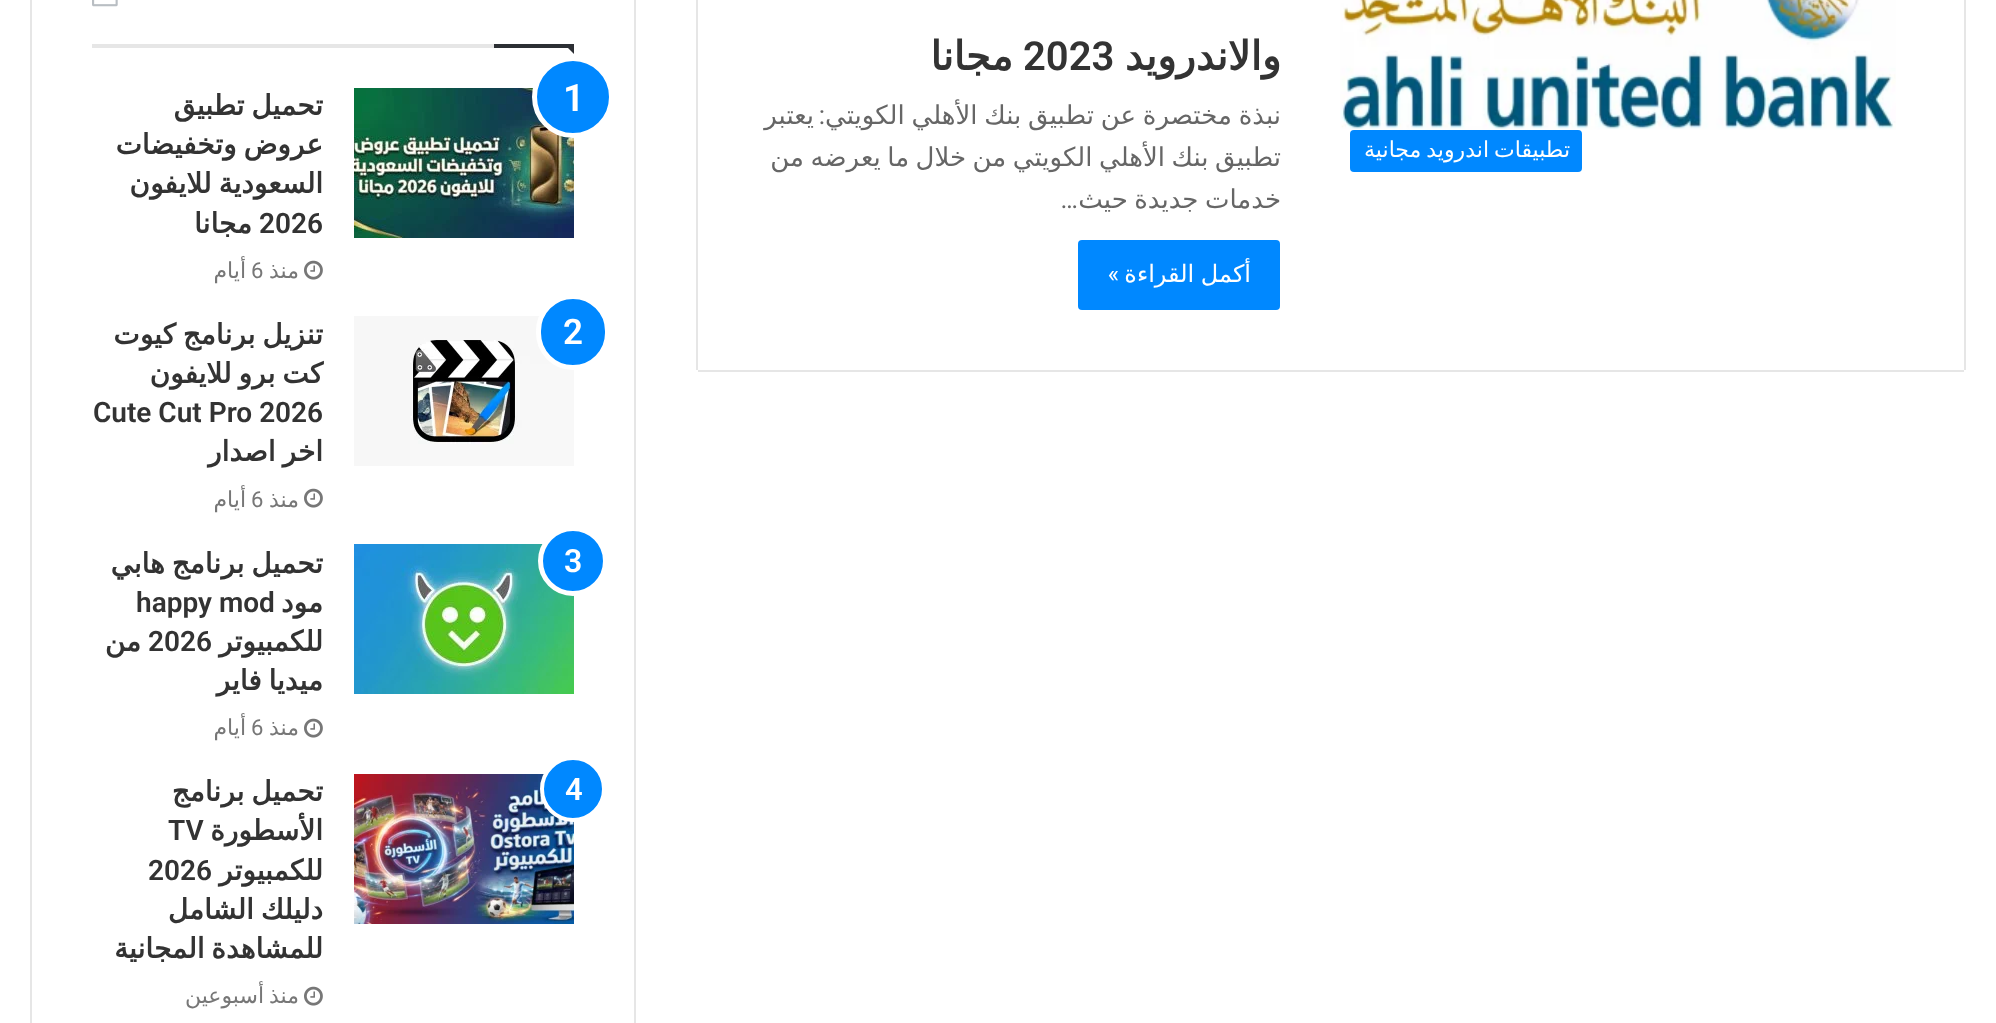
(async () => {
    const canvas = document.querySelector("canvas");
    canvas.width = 1996;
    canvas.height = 1023;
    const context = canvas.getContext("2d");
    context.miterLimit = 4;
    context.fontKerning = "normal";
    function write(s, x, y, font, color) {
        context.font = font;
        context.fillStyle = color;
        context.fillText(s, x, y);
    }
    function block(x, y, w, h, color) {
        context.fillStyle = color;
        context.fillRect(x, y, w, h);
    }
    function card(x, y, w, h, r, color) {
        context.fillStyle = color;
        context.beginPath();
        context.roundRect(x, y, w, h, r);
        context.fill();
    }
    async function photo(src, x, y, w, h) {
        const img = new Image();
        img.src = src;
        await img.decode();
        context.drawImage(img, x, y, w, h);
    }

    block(0, 0, 1996, 1023, "rgb(255, 255, 255)");
    block(1964, 0, 2, 370, "rgb(230, 230, 230)");
    block(698, 370, 1266, 2, "rgb(230, 230, 230)");
    block(696, 0, 2, 370, "rgb(230, 230, 230)");
    await photo("media/1.png", 1340, 0, 556, 130);
    card(1350, 130, 232, 42, 4, "rgb(0, 136, 255)");
    context.wordSpacing = "-2px";
    context.direction = "rtl";
    write("تطبيقات اندرويد مجانية", 1570, 157, "22px DejaVu Sans", "rgb(255, 255, 255)");
    context.wordSpacing = "0px";
    write("والاندرويد", 1281, 70, "bold 40px DejaVu Sans", "rgb(51, 51, 51)");
    context.direction = "ltr";
    write("2023", 1023, 70, "600 40px Roboto", "rgb(51, 51, 51)");
    context.direction = "rtl";
    write("مجانا", 1013, 70, "bold 40px DejaVu Sans", "rgb(51, 51, 51)");
    context.wordSpacing = "-1.5px";
    write("نبذة مختصرة عن تطبيق بنك الأهلي الكويتي", 1281, 124, "26px DejaVu Sans", "rgb(102, 102, 102)");
    context.wordSpacing = "0px";
    write(":", 825, 124, "26px Roboto", "rgb(102, 102, 102)");
    write("يعتبر", 814, 124, "26px DejaVu Sans", "rgb(102, 102, 102)");
    context.wordSpacing = "-1.75px";
    write("تطبيق بنك الأهلي الكويتي من خلال ما يعرضه من", 1281, 166, "26px DejaVu Sans", "rgb(102, 102, 102)");
    write("خدمات جديدة حيث", 1281, 208, "26px DejaVu Sans", "rgb(102, 102, 102)");
    context.wordSpacing = "0px";
    write("…", 1078, 208, "26px Roboto", "rgb(102, 102, 102)");
    card(1078, 240, 202, 70, 4, "rgb(0, 136, 255)");
    context.wordSpacing = "-1px";
    write("أكمل القراءة", 1251, 282, "24px DejaVu Sans", "rgb(255, 255, 255)");
    context.wordSpacing = "0px";
    write("»", 1119, 282, "24px Roboto", "rgb(255, 255, 255)");
    context.strokeStyle = "rgb(230, 230, 230)";
    context.lineWidth = 2;
    context.strokeRect(31, -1, 604, 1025);
    block(92, 44, 402, 4, "rgb(230, 230, 230)");
    await photo("media/2.png", 92, 0, 26, 7);
    context.fillStyle = "rgb(44, 47, 52)";
    context.beginPath();
    context.moveTo(564, 44);
    context.lineTo(574, 44);
    context.lineTo(574, 54);
    context.closePath();
    context.fill();
    block(494, 44, 80, 4, "rgb(44, 47, 52)");
    await photo("media/3.png", 354, 88, 220, 150);
    context.fillStyle = "rgb(0, 136, 255)";
    context.beginPath();
    context.arc(573, 97, 38.5, 0, Math.PI * 2);
    context.fill();
    context.strokeStyle = "rgb(255, 255, 255)";
    context.lineWidth = 5;
    context.stroke();
    context.direction = "ltr";
    write("1", 563, 111, "600 38px Roboto", "rgb(255, 255, 255)");
    context.wordSpacing = "-2px";
    context.direction = "rtl";
    write("تحميل تطبيق", 323, 115, "bold 28px DejaVu Sans", "rgb(51, 51, 51)");
    write("عروض وتخفيضات", 323, 154, "bold 28px DejaVu Sans", "rgb(51, 51, 51)");
    write("السعودية للايفون", 323, 193, "bold 28px DejaVu Sans", "rgb(51, 51, 51)");
    context.wordSpacing = "0px";
    context.direction = "ltr";
    write("2026", 259, 233, "600 28px Roboto", "rgb(51, 51, 51)");
    context.direction = "rtl";
    write("مجانا", 252, 233, "bold 28px DejaVu Sans", "rgb(51, 51, 51)");
    await photo("media/4.png", 304, 260, 19, 20);
    write("منذ", 299, 278, "22px DejaVu Sans", "rgb(119, 119, 119)");
    context.direction = "ltr";
    write("6", 251, 278, "22px Roboto", "rgb(119, 119, 119)");
    context.direction = "rtl";
    write("أيام", 246, 278, "22px DejaVu Sans", "rgb(119, 119, 119)");
    await photo("media/5.png", 354, 316, 220, 150);
    context.fillStyle = "rgb(0, 136, 255)";
    context.beginPath();
    context.roundRect(538.5, 296.5, 69, 71, 34.5);
    context.fill();
    context.stroke();
    context.direction = "ltr";
    write("2", 563, 344, "600 35px Roboto", "rgb(255, 255, 255)");
    context.wordSpacing = "-2px";
    context.direction = "rtl";
    write("تنزيل برنامج كيوت", 323, 344, "bold 28px DejaVu Sans", "rgb(51, 51, 51)");
    write("كت برو للايفون", 323, 383, "bold 28px DejaVu Sans", "rgb(51, 51, 51)");
    context.wordSpacing = "0px";
    context.direction = "ltr";
    write("Cute Cut Pro 2026", 93, 422, "600 28px Roboto", "rgb(51, 51, 51)");
    context.wordSpacing = "-2px";
    context.direction = "rtl";
    write("اخر اصدار", 323, 461, "bold 28px DejaVu Sans", "rgb(51, 51, 51)");
    await photo("media/4.png", 304, 488, 19, 20);
    context.wordSpacing = "0px";
    write("منذ", 299, 507, "22px DejaVu Sans", "rgb(119, 119, 119)");
    context.direction = "ltr";
    write("6", 251, 507, "22px Roboto", "rgb(119, 119, 119)");
    context.direction = "rtl";
    write("أيام", 246, 507, "22px DejaVu Sans", "rgb(119, 119, 119)");
    await photo("media/6.png", 354, 544, 220, 150);
    context.fillStyle = "rgb(0, 136, 255)";
    context.beginPath();
    context.arc(573, 561, 32.5, 0, Math.PI * 2);
    context.fill();
    context.stroke();
    context.direction = "ltr";
    write("3", 564, 572, "600 32px Roboto", "rgb(255, 255, 255)");
    context.wordSpacing = "-2px";
    context.direction = "rtl";
    write("تحميل برنامج هابي", 323, 573, "bold 28px DejaVu Sans", "rgb(51, 51, 51)");
    context.wordSpacing = "0px";
    write("مود", 323, 612, "bold 28px DejaVu Sans", "rgb(51, 51, 51)");
    context.direction = "ltr";
    write("happy mod", 136, 612, "600 28px Roboto", "rgb(51, 51, 51)");
    context.direction = "rtl";
    write("للكمبيوتر", 323, 651, "bold 28px DejaVu Sans", "rgb(51, 51, 51)");
    context.direction = "ltr";
    write("2026", 148, 651, "600 28px Roboto", "rgb(51, 51, 51)");
    context.direction = "rtl";
    write("من", 141, 651, "bold 28px DejaVu Sans", "rgb(51, 51, 51)");
    context.wordSpacing = "-2px";
    write("ميديا فاير", 323, 690, "bold 28px DejaVu Sans", "rgb(51, 51, 51)");
    await photo("media/4.png", 304, 718, 19, 20);
    context.wordSpacing = "0px";
    write("منذ", 299, 735, "22px DejaVu Sans", "rgb(119, 119, 119)");
    context.direction = "ltr";
    write("6", 251, 735, "22px Roboto", "rgb(119, 119, 119)");
    context.direction = "rtl";
    write("أيام", 246, 735, "22px DejaVu Sans", "rgb(119, 119, 119)");
    await photo("media/7.png", 354, 774, 220, 150);
    context.fillStyle = "rgb(0, 136, 255)";
    context.beginPath();
    context.arc(573, 789, 31, 0, Math.PI * 2);
    context.fill();
    context.lineWidth = 4;
    context.stroke();
    context.direction = "ltr";
    write("4", 565, 800, "600 31px Roboto", "rgb(255, 255, 255)");
    context.wordSpacing = "-2px";
    context.direction = "rtl";
    write("تحميل برنامج", 323, 801, "bold 28px DejaVu Sans", "rgb(51, 51, 51)");
    context.wordSpacing = "0px";
    write("الأسطورة", 323, 840, "bold 28px DejaVu Sans", "rgb(51, 51, 51)");
    context.direction = "ltr";
    write("TV", 168, 840, "600 28px Roboto", "rgb(51, 51, 51)");
    context.direction = "rtl";
    write("للكمبيوتر", 323, 880, "bold 28px DejaVu Sans", "rgb(51, 51, 51)");
    context.direction = "ltr";
    write("2026", 148, 880, "600 28px Roboto", "rgb(51, 51, 51)");
    context.wordSpacing = "-2px";
    context.direction = "rtl";
    write("دليلك الشامل", 323, 919, "bold 28px DejaVu Sans", "rgb(51, 51, 51)");
    write("للمشاهدة المجانية", 323, 958, "bold 28px DejaVu Sans", "rgb(51, 51, 51)");
    await photo("media/4.png", 304, 986, 19, 20);
    write("منذ أسبوعين", 299, 1003, "22px DejaVu Sans", "rgb(119, 119, 119)");
})();
